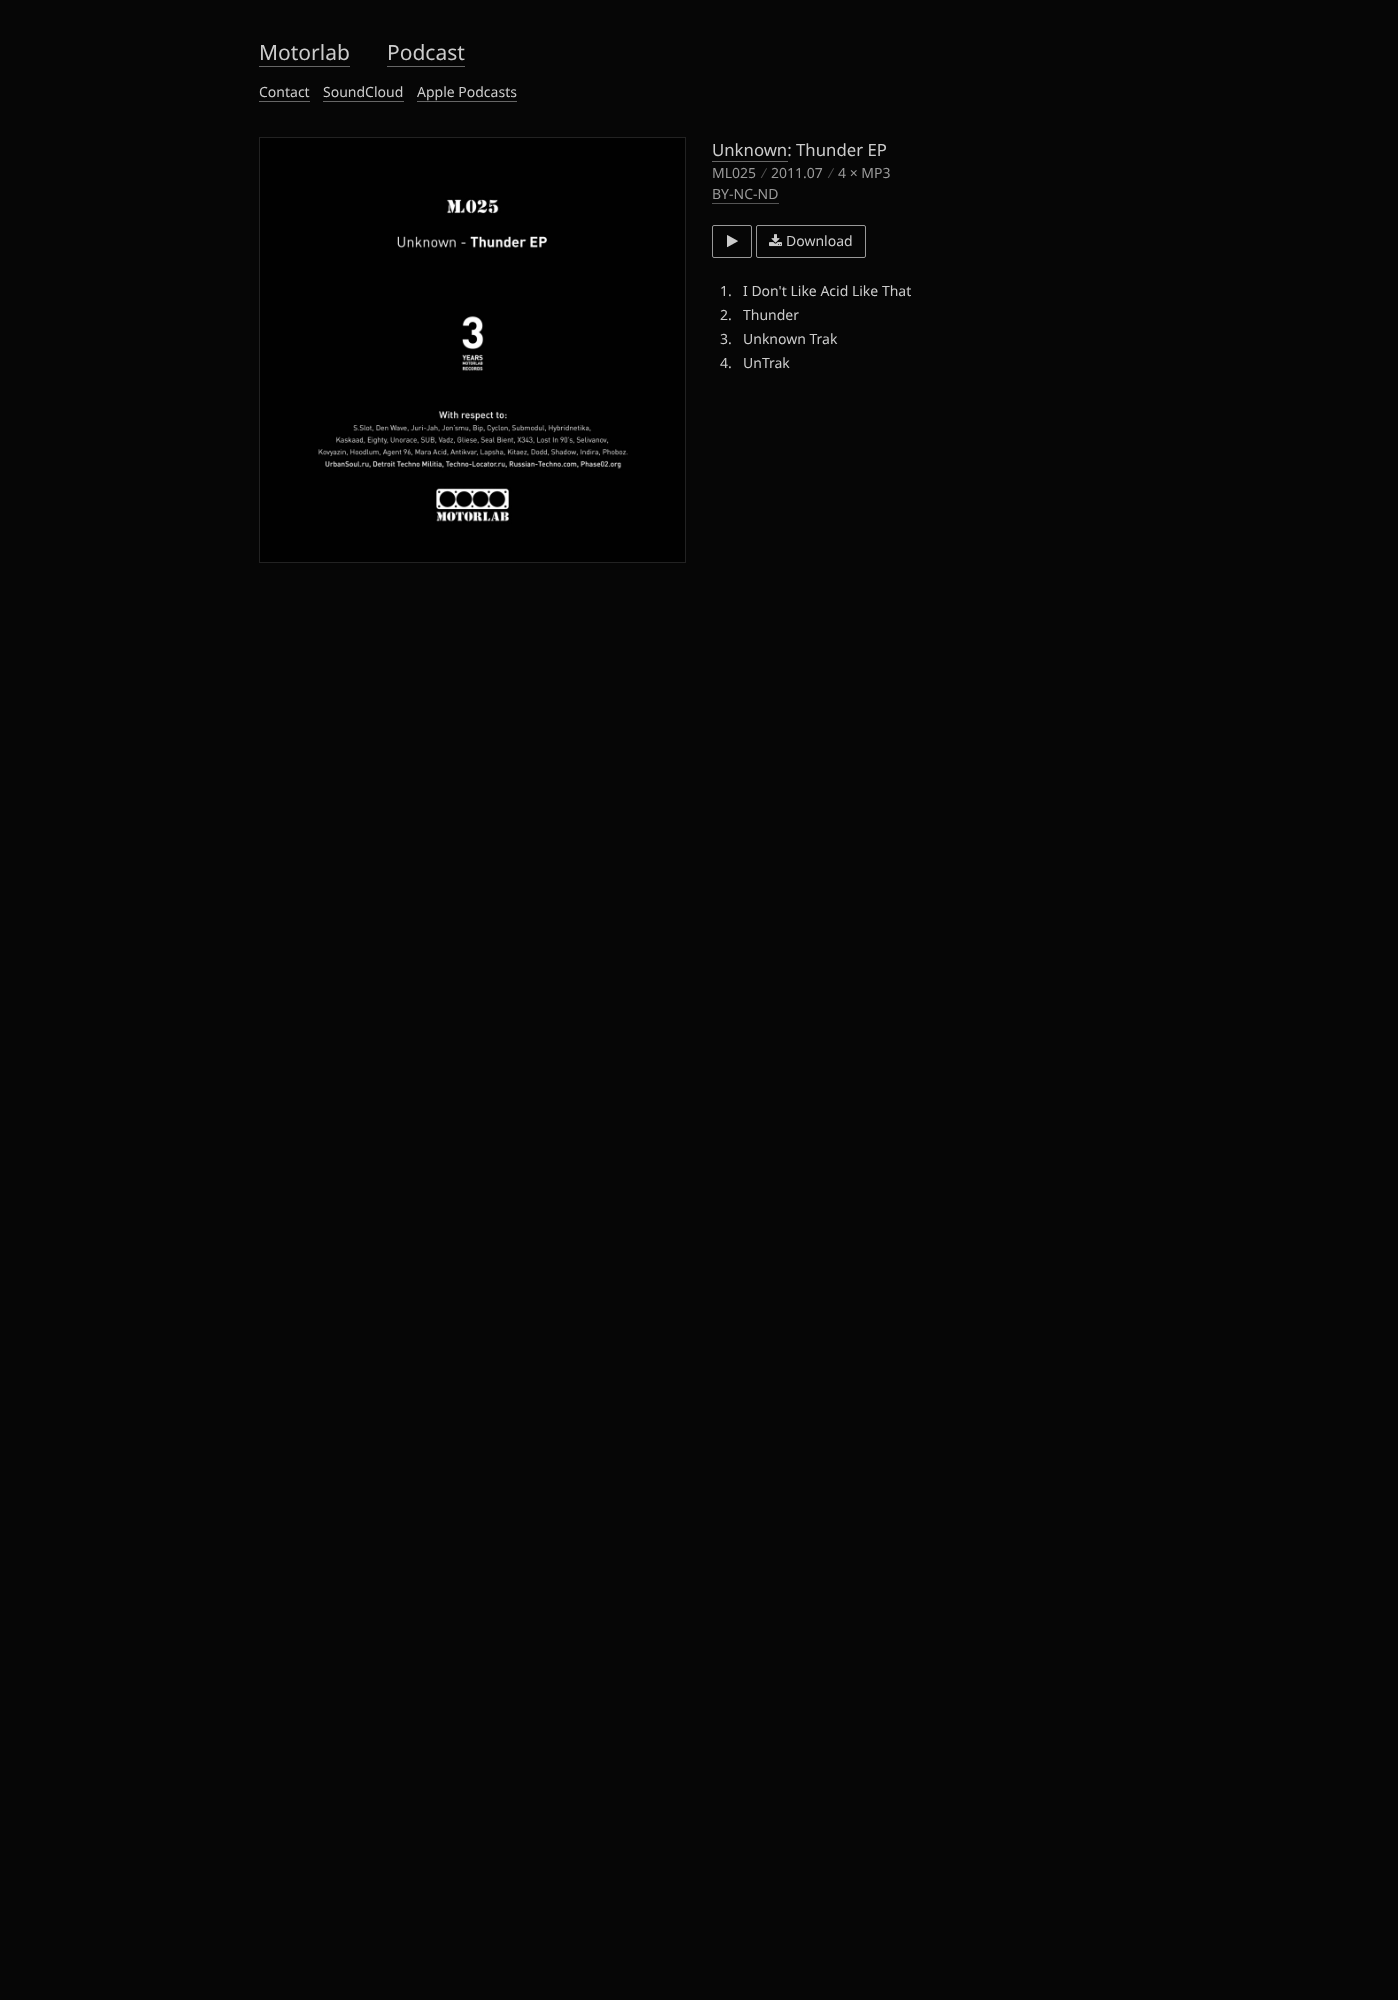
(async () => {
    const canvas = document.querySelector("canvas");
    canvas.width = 1398;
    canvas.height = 2000;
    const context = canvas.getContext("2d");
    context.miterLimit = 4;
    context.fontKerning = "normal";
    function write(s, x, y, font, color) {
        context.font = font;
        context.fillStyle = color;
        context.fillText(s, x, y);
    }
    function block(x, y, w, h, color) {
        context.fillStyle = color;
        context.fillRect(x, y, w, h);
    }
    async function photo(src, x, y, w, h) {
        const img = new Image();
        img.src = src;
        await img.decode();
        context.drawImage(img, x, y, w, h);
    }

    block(0, 0, 1398, 2000, "rgb(6, 6, 6)");
    write("Motorlab", 259, 60, "21px Noto Sans", "rgb(204, 204, 204)");
    block(259, 66, 91, 1, "rgb(102, 102, 102)");
    write("Podcast", 387, 60, "21px Noto Sans", "rgb(204, 204, 204)");
    block(387, 66, 78, 1, "rgb(102, 102, 102)");
    write("Contact", 259, 97, "14px Noto Sans", "rgb(204, 204, 204)");
    block(259, 101, 51, 1, "rgb(102, 102, 102)");
    write("SoundCloud", 323, 97, "14px Noto Sans", "rgb(204, 204, 204)");
    block(323, 101, 81, 1, "rgb(102, 102, 102)");
    write("Apple Podcasts", 417, 97, "14px Noto Sans", "rgb(204, 204, 204)");
    block(417, 101, 100, 1, "rgb(102, 102, 102)");
    context.strokeStyle = "rgb(34, 34, 34)";
    context.strokeRect(259.5, 137.5, 426, 425);
    await photo("media/1.png", 260, 138, 425, 424);
    write("Unknown: Thunder EP", 712, 156, "16.75px Noto Sans", "rgb(204, 204, 204)");
    block(712, 161, 76, 1, "rgb(102, 102, 102)");
    write("ML025", 712, 178, "14px Noto Sans", "rgb(153, 153, 153)");
    write("∕", 760, 178, "14px Ubuntu", "rgb(85, 85, 85)");
    write("2011.07", 771, 178, "14px Noto Sans", "rgb(153, 153, 153)");
    write("∕", 827, 178, "14px Ubuntu", "rgb(85, 85, 85)");
    write("4 × MP3", 838, 178, "14px Noto Sans", "rgb(153, 153, 153)");
    write("BY-NC-ND", 712, 199, "14px Noto Sans", "rgb(153, 153, 153)");
    block(712, 203, 67, 1, "rgb(85, 85, 85)");
    context.beginPath();
    context.roundRect(712.5, 225.5, 39, 32, 1.5);
    context.strokeStyle = "rgb(153, 153, 153)";
    context.stroke();
    await photo("media/2.png", 727, 235, 11, 13);
    context.beginPath();
    context.roundRect(756.5, 225.5, 109, 32, 1.5);
    context.stroke();
    await photo("media/3.png", 769, 234, 13, 13);
    write("Download", 786, 246, "14px Noto Sans", "rgb(204, 204, 204)");
    write("1.", 720, 296, "14px Noto Sans", "rgb(204, 204, 204)");
    write("I Don't Like Acid Like That", 743, 296, "14px Noto Sans", "rgb(204, 204, 204)");
    write("2.", 720, 320, "14px Noto Sans", "rgb(204, 204, 204)");
    write("Thunder", 743, 320, "14px Noto Sans", "rgb(204, 204, 204)");
    write("3.", 720, 344, "14px Noto Sans", "rgb(204, 204, 204)");
    write("Unknown Trak", 743, 344, "14px Noto Sans", "rgb(204, 204, 204)");
    write("4.", 720, 368, "14px Noto Sans", "rgb(204, 204, 204)");
    write("UnTrak", 743, 368, "14px Noto Sans", "rgb(204, 204, 204)");
})();
